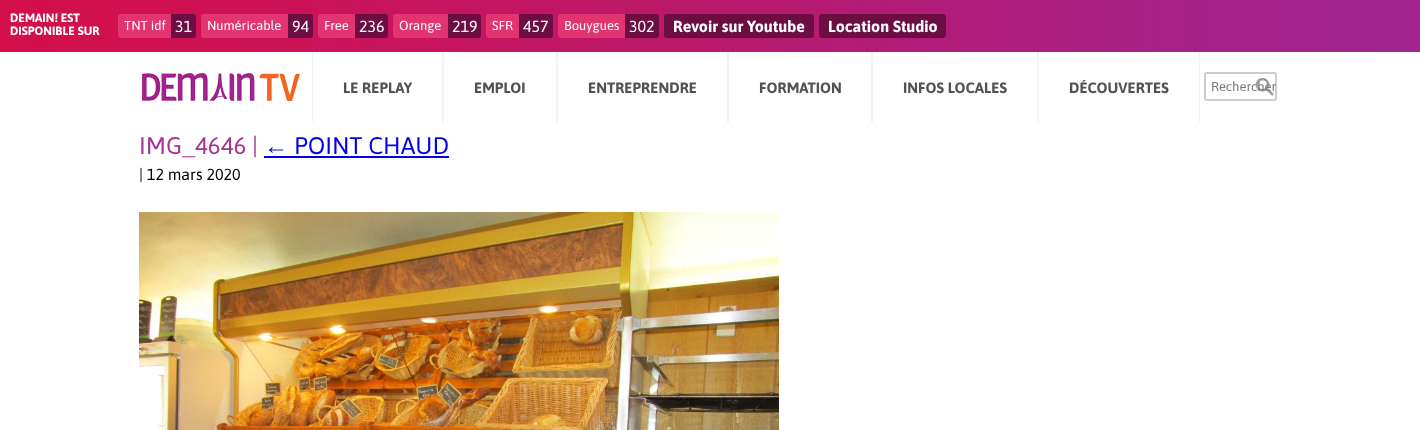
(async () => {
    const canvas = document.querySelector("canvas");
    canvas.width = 1420;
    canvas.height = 430;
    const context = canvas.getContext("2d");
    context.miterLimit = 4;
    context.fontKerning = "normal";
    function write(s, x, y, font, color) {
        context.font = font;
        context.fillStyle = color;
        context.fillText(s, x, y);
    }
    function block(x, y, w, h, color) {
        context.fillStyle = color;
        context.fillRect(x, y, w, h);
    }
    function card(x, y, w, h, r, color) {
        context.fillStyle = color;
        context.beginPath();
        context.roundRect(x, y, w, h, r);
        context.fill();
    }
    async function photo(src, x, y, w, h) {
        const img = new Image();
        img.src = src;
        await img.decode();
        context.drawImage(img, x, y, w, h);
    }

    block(0, 0, 1420, 430, "rgb(255, 255, 255)");
    await photo("media/1.png", 0, 0, 1420, 52);
    write("DEMAIN! EST", 10, 22, "bold 12px Asap", "rgb(255, 255, 255)");
    write("DISPONIBLE SUR", 10, 35, "bold 12px Asap", "rgb(255, 255, 255)");
    context.fillStyle = "rgb(225, 52, 112)";
    context.beginPath();
    context.roundRect(118, 14, 53, 24, [3, 0, 0, 3]);
    context.fill();
    write("TNT idf", 124, 30, "13px Asap", "rgb(255, 255, 255)");
    context.fillStyle = "rgb(109, 14, 67)";
    context.beginPath();
    context.roundRect(171, 14, 25, 24, [0, 3, 3, 0]);
    context.fill();
    write("31", 175, 32, "16px Asap", "rgb(255, 255, 255)");
    context.fillStyle = "rgb(225, 52, 112)";
    context.beginPath();
    context.roundRect(201, 14, 87, 24, [3, 0, 0, 3]);
    context.fill();
    write("Numéricable", 207, 30, "13px Asap", "rgb(255, 255, 255)");
    context.fillStyle = "rgb(109, 14, 67)";
    context.beginPath();
    context.roundRect(288, 14, 25, 24, [0, 3, 3, 0]);
    context.fill();
    write("94", 292, 32, "16px Asap", "rgb(255, 255, 255)");
    context.fillStyle = "rgb(225, 52, 112)";
    context.beginPath();
    context.roundRect(318, 14, 37, 24, [3, 0, 0, 3]);
    context.fill();
    write("Free", 324, 30, "13px Asap", "rgb(255, 255, 255)");
    context.fillStyle = "rgb(109, 14, 67)";
    context.beginPath();
    context.roundRect(355, 14, 33, 24, [0, 3, 3, 0]);
    context.fill();
    write("236", 359, 32, "16px Asap", "rgb(255, 255, 255)");
    context.fillStyle = "rgb(225, 52, 112)";
    context.beginPath();
    context.roundRect(393, 14, 55, 24, [3, 0, 0, 3]);
    context.fill();
    write("Orange", 399, 30, "13px Asap", "rgb(255, 255, 255)");
    context.fillStyle = "rgb(109, 14, 67)";
    context.beginPath();
    context.roundRect(448, 14, 33, 24, [0, 3, 3, 0]);
    context.fill();
    write("219", 452, 32, "16px Asap", "rgb(255, 255, 255)");
    context.fillStyle = "rgb(225, 52, 112)";
    context.beginPath();
    context.roundRect(486, 14, 33, 24, [3, 0, 0, 3]);
    context.fill();
    write("SFR", 492, 30, "13px Asap", "rgb(255, 255, 255)");
    context.fillStyle = "rgb(109, 14, 67)";
    context.beginPath();
    context.roundRect(519, 14, 34, 24, [0, 3, 3, 0]);
    context.fill();
    write("457", 523, 32, "16px Asap", "rgb(255, 255, 255)");
    context.fillStyle = "rgb(225, 52, 112)";
    context.beginPath();
    context.roundRect(558, 14, 67, 24, [3, 0, 0, 3]);
    context.fill();
    write("Bouygues", 564, 30, "13px Asap", "rgb(255, 255, 255)");
    context.fillStyle = "rgb(109, 14, 67)";
    context.beginPath();
    context.roundRect(625, 14, 34, 24, [0, 3, 3, 0]);
    context.fill();
    write("302", 629, 32, "16px Asap", "rgb(255, 255, 255)");
    card(664, 14, 150, 24, 3, "rgb(109, 14, 67)");
    write("Revoir sur Youtube", 673, 32, "bold 16px Asap", "rgb(255, 255, 255)");
    card(819, 14, 127, 24, 3, "rgb(109, 14, 67)");
    write("Location Studio", 828, 32, "bold 16px Asap", "rgb(255, 255, 255)");
    await photo("media/2.png", 142, 73, 158, 28);
    block(442, 52, 2, 71, "rgb(244, 244, 244)");
    block(312, 52, 1, 71, "rgb(244, 244, 244)");
    write("LE REPLAY", 343, 93, "bold 15px Asap", "rgb(82, 82, 81)");
    block(556, 52, 2, 71, "rgb(244, 244, 244)");
    write("EMPLOI", 474, 93, "bold 15px Asap", "rgb(82, 82, 81)");
    block(727, 52, 2, 71, "rgb(244, 244, 244)");
    write("ENTREPRENDRE", 588, 93, "bold 15px Asap", "rgb(82, 82, 81)");
    block(871, 52, 2, 71, "rgb(244, 244, 244)");
    write("FORMATION", 759, 93, "bold 15px Asap", "rgb(82, 82, 81)");
    block(1037, 52, 2, 71, "rgb(244, 244, 244)");
    write("INFOS LOCALES", 903, 93, "bold 15px Asap", "rgb(82, 82, 81)");
    block(1199, 52, 1, 71, "rgb(244, 244, 244)");
    write("DÉCOUVERTES", 1069, 93, "bold 15px Asap", "rgb(82, 82, 81)");
    await photo("media/3.png", 1255, 78, 19, 18);
    context.beginPath();
    context.roundRect(1205, 73, 71, 27, 2);
    context.strokeStyle = "rgb(204, 204, 204)";
    context.lineWidth = 2;
    context.stroke();
    write("Rechercher", 1211, 91, "13px Asap", "rgb(117, 117, 117)");
    write("IMG_4646 |", 139, 154, "24px Asap", "rgb(167, 51, 150)");
    write("←", 264, 154, "24px Liberation Sans", "rgb(0, 0, 238)");
    block(264, 156, 185, 2, "rgb(0, 0, 238)");
    write("POINT CHAUD", 294, 154, "24px Asap", "rgb(0, 0, 238)");
    write("| 12 mars 2020", 139, 180, "16px Asap", "rgb(0, 0, 0)");
    await photo("media/4.png", 139, 212, 640, 218);
})();
